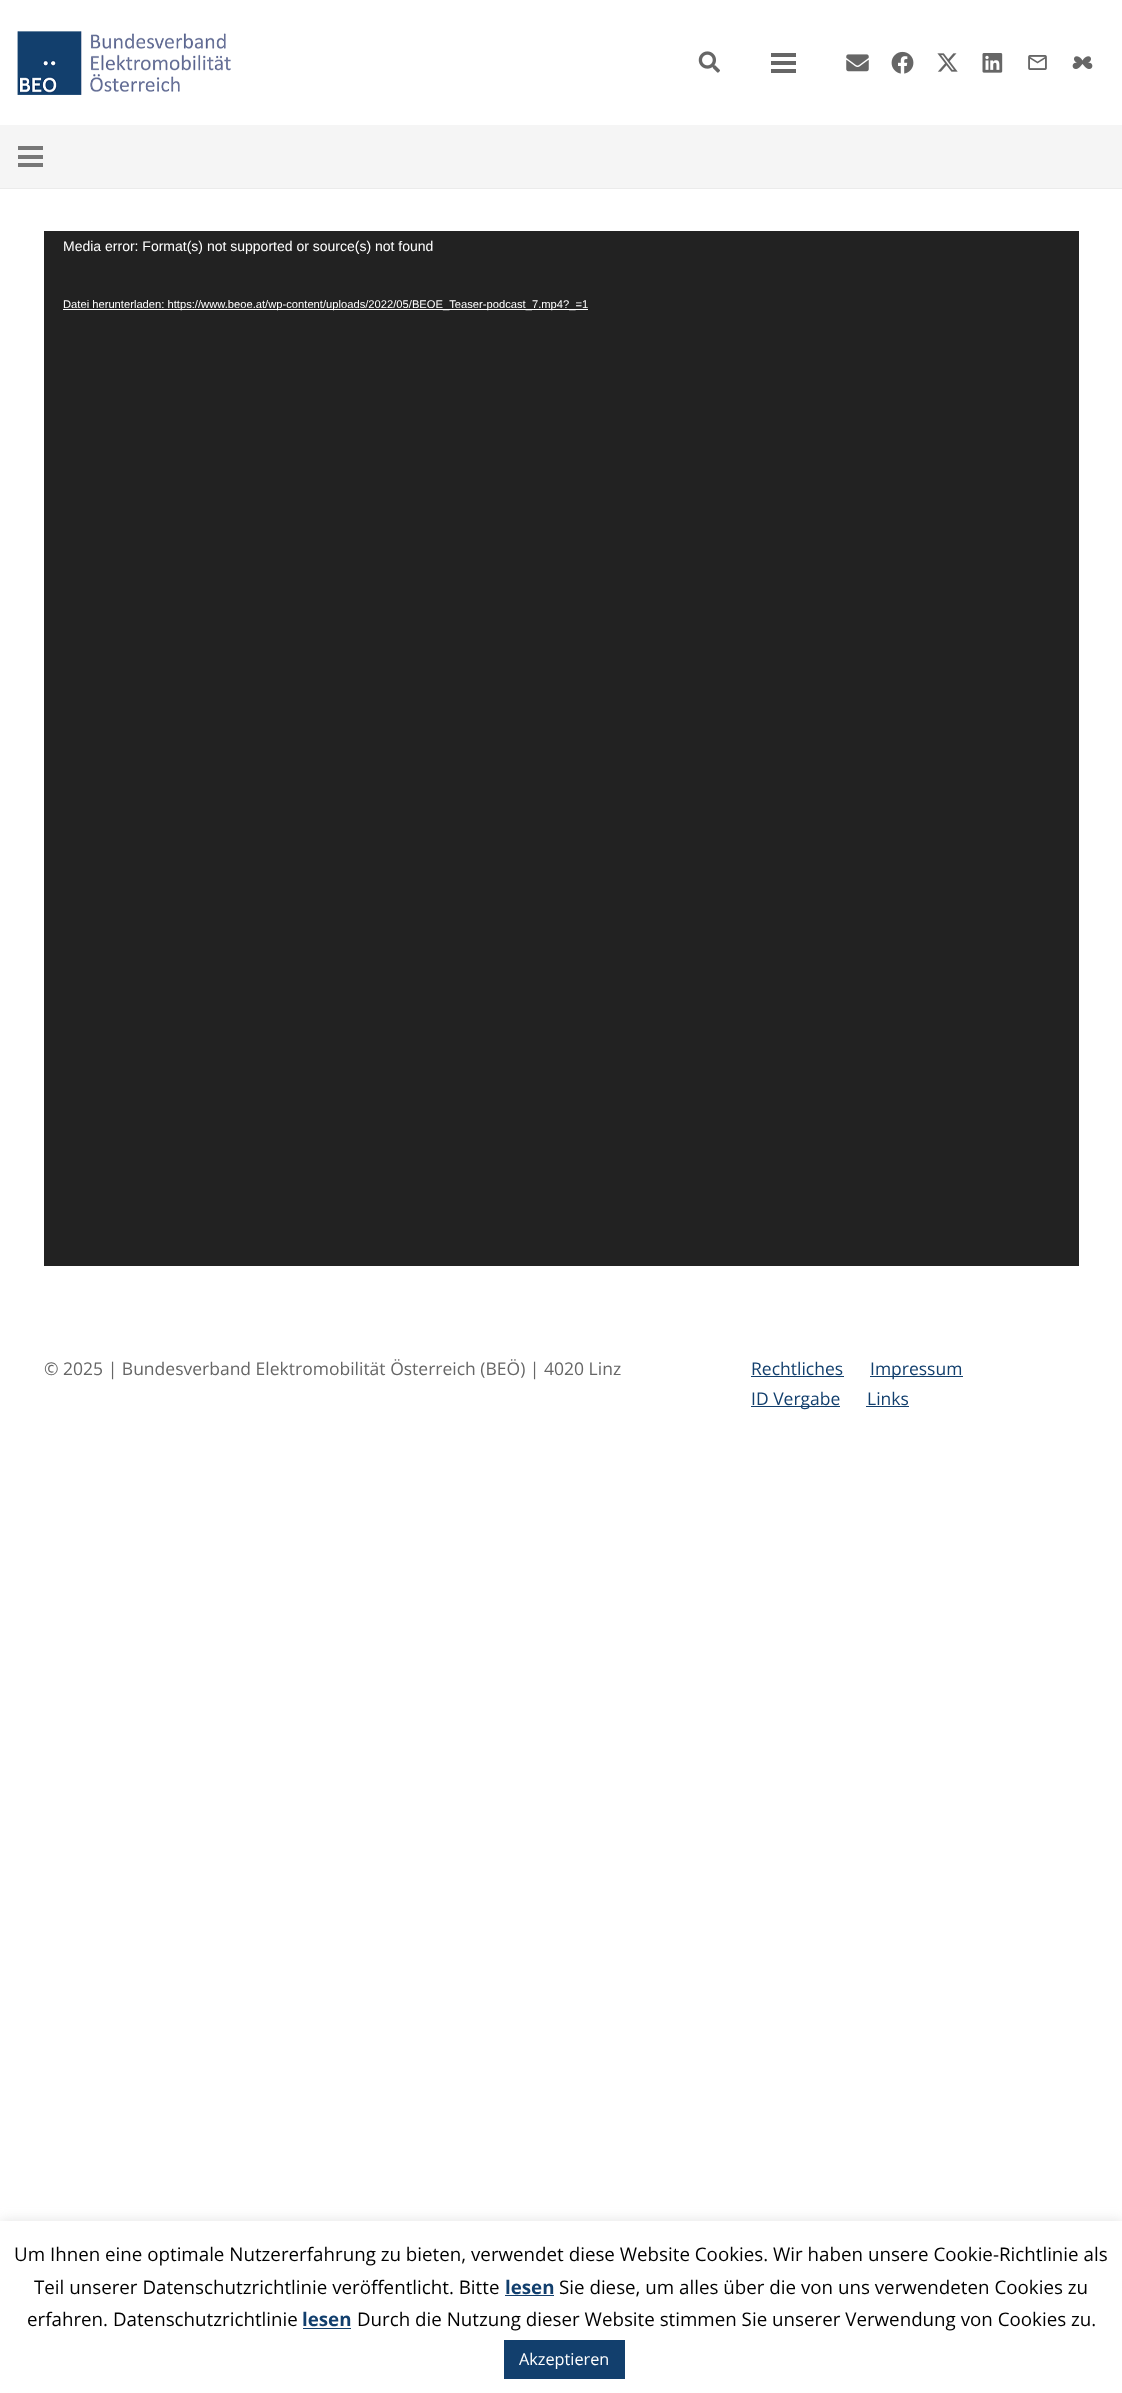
(async () => {
    const canvas = document.querySelector("canvas");
    canvas.width = 1122;
    canvas.height = 2393;
    const context = canvas.getContext("2d");
    context.miterLimit = 4;
    context.fontKerning = "normal";
    function write(s, x, y, font, color) {
        context.font = font;
        context.fillStyle = color;
        context.fillText(s, x, y);
    }
    function block(x, y, w, h, color) {
        context.fillStyle = color;
        context.fillRect(x, y, w, h);
    }
    async function photo(src, x, y, w, h) {
        const img = new Image();
        img.src = src;
        await img.decode();
        context.drawImage(img, x, y, w, h);
    }

    block(0, 0, 1122, 2393, "rgb(255, 255, 255)");
    await photo("media/1.png", 17, 31, 214, 64);
    await photo("media/2.png", 698, 51, 22, 22);
    block(771, 61, 25, 4, "rgb(102, 102, 102)");
    block(771, 53, 25, 4, "rgb(102, 102, 102)");
    block(771, 69, 25, 4, "rgb(102, 102, 102)");
    await photo("media/3.png", 846, 54, 23, 18);
    await photo("media/4.png", 891, 51, 23, 23);
    await photo("media/5.png", 937, 53, 21, 19);
    await photo("media/6.png", 982, 53, 21, 20);
    await photo("media/7.png", 1028, 55, 19, 15);
    await photo("media/8.png", 1072, 56, 21, 13);
    context.fillStyle = "rgb(235, 235, 235)";
    context.beginPath();
    context.moveTo(0, 188);
    context.lineTo(0, 189);
    context.lineTo(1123, 189);
    context.lineTo(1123, 126);
    context.lineTo(1122, 126);
    context.lineTo(1122, 188);
    context.closePath();
    context.fill();
    block(0, 125, 1122, 63, "rgb(245, 245, 245)");
    block(18, 155, 25, 4, "rgb(119, 119, 119)");
    block(18, 146, 25, 4, "rgb(119, 119, 119)");
    block(18, 163, 25, 4, "rgb(119, 119, 119)");
    block(44, 231, 1035, 1035, "rgb(34, 34, 34)");
    write("Media error: Format(s) not supported or source(s) not found", 63, 251, "14px Liberation Sans", "rgb(255, 255, 255)");
    block(63, 309, 525, 1, "rgb(255, 255, 255)");
    write("Datei herunterladen: https://www.beoe.at/wp-content/uploads/2022/05/BEOE_Teaser-podcast_7.mp4?_=1", 63, 308, "11.2px Liberation Sans", "rgb(255, 255, 255)");
    write("© 2025 | Bundesverband Elektromobilität Österreich (BEÖ) | 4020 Linz", 44, 1375, "17.5px Open Sans", "rgb(102, 102, 102)");
    write("Rechtliches", 751, 1375, "17.5px Open Sans", "rgb(18, 63, 109)");
    block(751, 1376, 93, 1, "rgb(18, 63, 109)");
    block(870, 1376, 93, 1, "rgb(18, 63, 109)");
    write("Impressum", 870, 1375, "17.5px Open Sans", "rgb(18, 63, 109)");
    block(751, 1406, 89, 1, "rgb(18, 63, 109)");
    write("ID Vergabe", 751, 1405, "17.5px Open Sans", "rgb(18, 63, 109)");
    write("Links", 867, 1405, "17.5px Open Sans", "rgb(18, 63, 109)");
    block(866, 1406, 43, 1, "rgb(18, 63, 109)");
    context.fillStyle = "rgba(172, 171, 171, 0.3)";
    context.filter = "blur(6px)";
    context.beginPath();
    context.rect(0, 2220, 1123, 173);
    context.fill();
    context.filter = "none";
    block(0, 2221, 1122, 172, "rgb(255, 255, 255)");
    write("Um Ihnen eine optimale Nutzererfahrung zu bieten, verwendet diese Website Cookies. Wir haben unsere Cookie-Richtlinie als", 14, 2261, "18.75px Open Sans", "rgb(0, 0, 0)");
    write("Teil unserer Datenschutzrichtlinie veröffentlicht. Bitte", 34, 2294, "18.75px Open Sans", "rgb(0, 0, 0)");
    write("lesen", 505, 2294, "bold 18.75px Open Sans", "rgb(18, 63, 109)");
    block(505, 2295, 49, 1, "rgb(18, 63, 109)");
    write("Sie diese, um alles über die von uns verwendeten Cookies zu", 559, 2294, "18.75px Open Sans", "rgb(0, 0, 0)");
    write("erfahren. Datenschutzrichtlinie", 27, 2326, "18.75px Open Sans", "rgb(0, 0, 0)");
    write("lesen", 302, 2326, "bold 18.75px Open Sans", "rgb(18, 63, 109)");
    block(303, 2328, 48, 1, "rgb(18, 63, 109)");
    write("Durch die Nutzung dieser Website stimmen Sie unserer Verwendung von Cookies zu.", 357, 2326, "18.75px Open Sans", "rgb(0, 0, 0)");
    block(504, 2340, 121, 39, "rgb(18, 63, 109)");
    write("Akzeptieren", 519, 2365, "16.25px Open Sans", "rgb(255, 255, 255)");
})();
